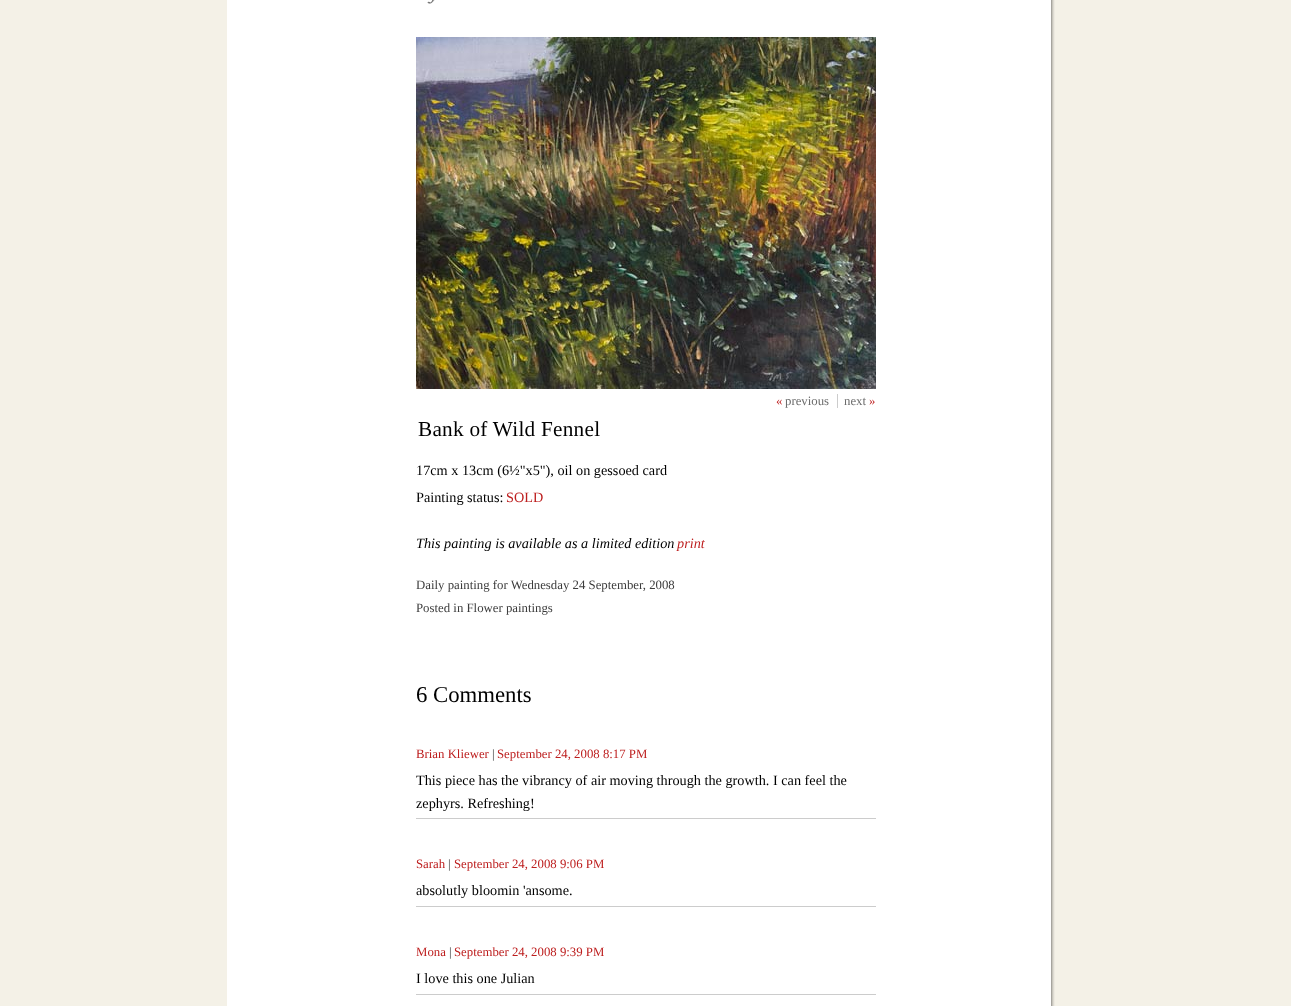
(async () => {
    const canvas = document.querySelector("canvas");
    canvas.width = 1291;
    canvas.height = 1006;
    const context = canvas.getContext("2d");
    context.miterLimit = 4;
    context.fontKerning = "normal";
    function write(s, x, y, font, color) {
        context.font = font;
        context.fillStyle = color;
        context.fillText(s, x, y);
    }
    function block(x, y, w, h, color) {
        context.fillStyle = color;
        context.fillRect(x, y, w, h);
    }
    async function photo(src, x, y, w, h) {
        const img = new Image();
        img.src = src;
        await img.decode();
        context.drawImage(img, x, y, w, h);
    }

    block(0, 0, 1291, 1006, "rgb(244, 241, 231)");
    await photo("media/1.png", 227, 0, 828, 1006);
    await photo("media/2.png", 427, 0, 8, 4);
    await photo("media/3.png", 416, 37, 460, 352);
    write("«", 776, 405, "12.8px Liberation Serif", "rgb(189, 30, 30)");
    write("previous", 785, 405, "12.8px Liberation Serif", "rgb(108, 108, 108)");
    write("next", 844, 405, "12.8px Liberation Serif", "rgb(108, 108, 108)");
    block(837, 394, 1, 14, "rgb(204, 204, 204)");
    write("»", 869, 405, "12.8px Liberation Serif", "rgb(189, 30, 30)");
    context.letterSpacing = "0.25px";
    write("Bank of Wild Fennel", 418, 436, "21.25px Liberation Serif", "rgb(0, 0, 0)");
    context.letterSpacing = "0px";
    write("17cm x 13cm (6½\"x5\"), oil on gessoed card", 416, 475, "14.25px Liberation Serif", "rgb(0, 0, 0)");
    write("Painting status:", 416, 502, "14.25px Liberation Serif", "rgb(0, 0, 0)");
    write("SOLD", 506, 502, "14.25px Liberation Serif", "rgb(189, 30, 30)");
    write("This painting is available as a limited edition", 416, 548, "italic 14.25px Liberation Serif", "rgb(0, 0, 0)");
    write("print", 677, 548, "italic 14.25px Liberation Serif", "rgb(189, 30, 30)");
    write("Daily painting for Wednesday 24 September, 2008", 416, 589, "12.8px Liberation Serif", "rgb(60, 60, 60)");
    write("Posted in Flower paintings", 416, 612, "12.8px Liberation Serif", "rgb(60, 60, 60)");
    write("6 Comments", 416, 702, "22.75px Liberation Serif", "rgb(0, 0, 0)");
    write("Brian Kliewer", 416, 758, "12.8px Liberation Serif", "rgb(189, 30, 30)");
    write("|", 492, 758, "12.8px Liberation Serif", "rgb(54, 54, 54)");
    write("September 24, 2008 8:17 PM", 497, 758, "12.8px Liberation Serif", "rgb(189, 30, 30)");
    block(416, 818, 460, 1, "rgb(204, 204, 204)");
    write("This piece has the vibrancy of air moving through the growth. I can feel the", 416, 785, "14.25px Liberation Serif", "rgb(0, 0, 0)");
    write("zephyrs. Refreshing!", 416, 808, "14.25px Liberation Serif", "rgb(0, 0, 0)");
    write("Sarah", 416, 868, "12.8px Liberation Serif", "rgb(189, 30, 30)");
    write("|", 448, 868, "12.8px Liberation Serif", "rgb(54, 54, 54)");
    write("September 24, 2008 9:06 PM", 454, 868, "12.8px Liberation Serif", "rgb(189, 30, 30)");
    block(416, 906, 460, 1, "rgb(204, 204, 204)");
    write("absolutly bloomin 'ansome.", 416, 895, "14.25px Liberation Serif", "rgb(0, 0, 0)");
    write("Mona", 416, 956, "12.8px Liberation Serif", "rgb(189, 30, 30)");
    write("|", 449, 956, "12.8px Liberation Serif", "rgb(54, 54, 54)");
    write("September 24, 2008 9:39 PM", 454, 956, "12.8px Liberation Serif", "rgb(189, 30, 30)");
    block(416, 994, 460, 1, "rgb(204, 204, 204)");
    write("I love this one Julian", 416, 983, "14.25px Liberation Serif", "rgb(0, 0, 0)");
})();
